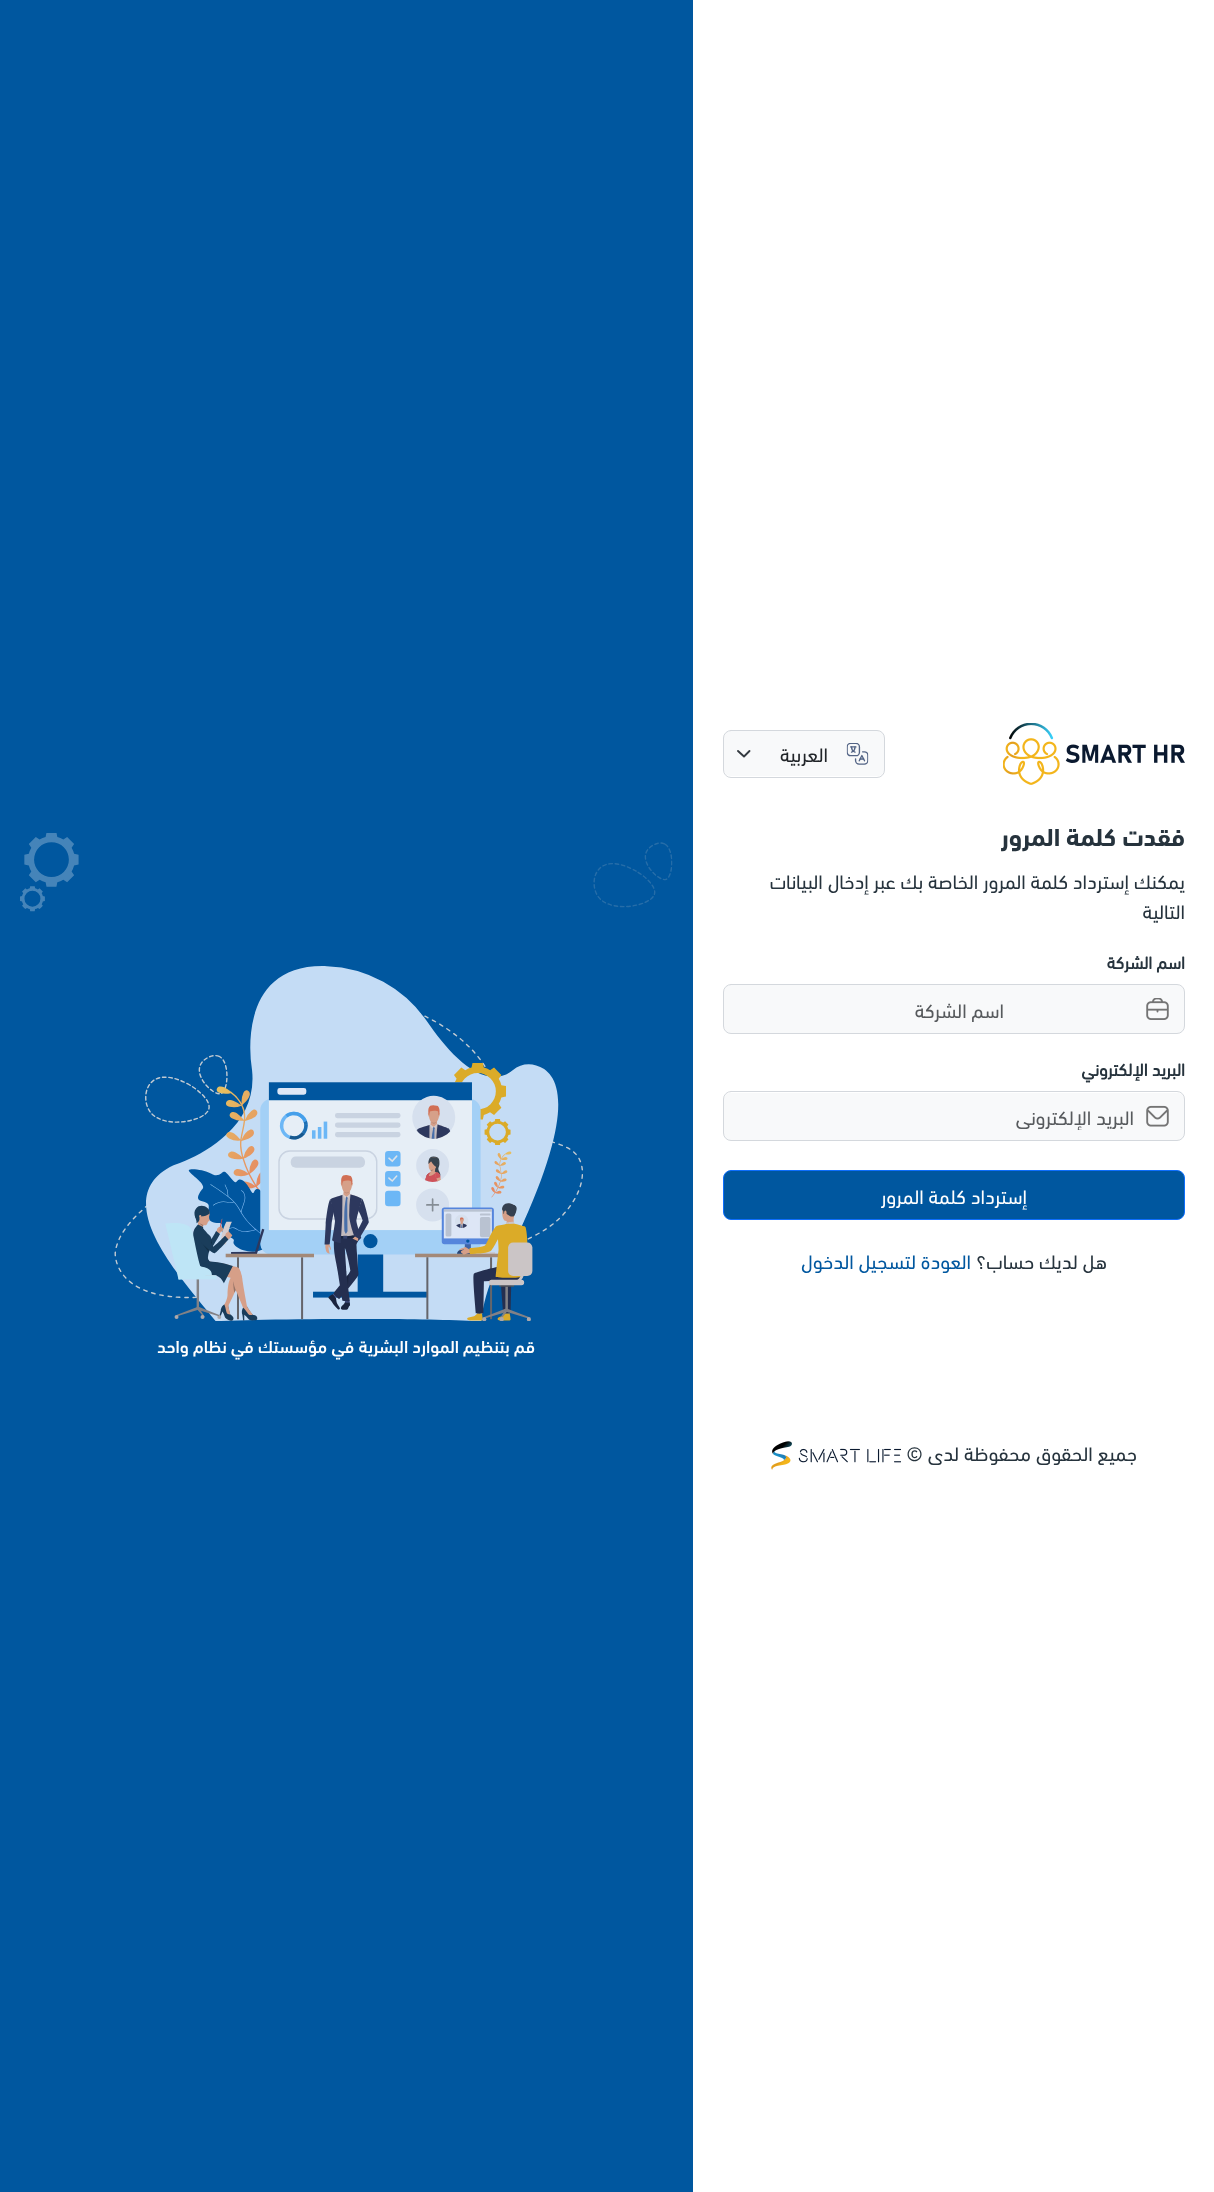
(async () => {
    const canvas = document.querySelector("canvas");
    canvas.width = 1214;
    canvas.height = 2192;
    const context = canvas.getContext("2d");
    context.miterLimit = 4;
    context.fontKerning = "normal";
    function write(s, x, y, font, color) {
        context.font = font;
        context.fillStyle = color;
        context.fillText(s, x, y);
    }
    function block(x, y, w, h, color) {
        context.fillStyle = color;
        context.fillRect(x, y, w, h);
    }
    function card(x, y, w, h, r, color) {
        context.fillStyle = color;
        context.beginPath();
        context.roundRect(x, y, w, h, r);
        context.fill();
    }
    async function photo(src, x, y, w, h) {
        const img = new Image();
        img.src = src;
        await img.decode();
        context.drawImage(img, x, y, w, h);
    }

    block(0, 0, 1214, 2192, "rgb(255, 255, 255)");
    await photo("media/1.png", 1003, 723, 182, 62);
    card(724, 731, 160, 45, 6, "rgb(248, 249, 250)");
    context.beginPath();
    context.moveTo(738, 751);
    context.lineTo(744, 756.5);
    context.lineTo(749.5, 751);
    context.strokeStyle = "rgb(52, 58, 64)";
    context.lineWidth = 1.9;
    context.lineCap = "round";
    context.lineJoin = "round";
    context.stroke();
    context.beginPath();
    context.roundRect(723.5, 730.5, 161, 47, 7.5);
    context.strokeStyle = "rgb(212, 216, 221)";
    context.lineWidth = 1;
    context.lineJoin = "miter";
    context.stroke();
    await photo("media/2.png", 846, 743, 23, 22);
    context.direction = "rtl";
    write("العربية", 828, 762, "20px 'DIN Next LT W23'", "rgb(33, 37, 41)");
    write("فقدت كلمة المرور", 1185, 846, "bold 25px 'DIN Next LT W23'", "rgb(38, 51, 61)");
    write("يمكنك إسترداد كلمة المرور الخاصة بك عبر إدخال البيانات", 1185, 889, "20px 'DIN Next LT W23'", "rgb(38, 51, 61)");
    write("التالية", 1185, 919, "20px 'DIN Next LT W23'", "rgb(38, 51, 61)");
    write("اسم الشركة", 1185, 969, "bold 17.5px 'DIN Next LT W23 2'", "rgb(38, 51, 61)");
    card(724, 985, 460, 48, 6, "rgb(248, 249, 250)");
    context.beginPath();
    context.roundRect(723.5, 984.5, 461, 49, 7.5);
    context.stroke();
    await photo("media/3.png", 1146, 998, 23, 22);
    write("اسم الشركة", 1004, 1018, "20px 'DIN Next LT W23'", "rgb(87, 90, 93)");
    write("البريد الإلكتروني", 1185, 1076, "bold 17.5px 'DIN Next LT W23 2'", "rgb(38, 51, 61)");
    card(724, 1093, 460, 47, 6, "rgb(248, 249, 250)");
    context.beginPath();
    context.roundRect(723.5, 1091.5, 461, 49, 7.5);
    context.stroke();
    await photo("media/4.png", 1146, 1105, 23, 22);
    context.save();
    context.beginPath();
    context.rect(744, 1101, 390, 29);
    context.clip();
    write("البريد الإلكتروني", 1134, 1125, "20px 'DIN Next LT W23'", "rgb(87, 90, 93)");
    context.restore();
    context.fillStyle = "rgb(0, 87, 159)";
    context.beginPath();
    context.roundRect(723.5, 1170.5, 461, 49, 7.5);
    context.fill();
    context.strokeStyle = "rgb(13, 110, 253)";
    context.stroke();
    write("إسترداد كلمة المرور", 1027, 1204, "20px 'DIN Next LT W23'", "rgb(255, 255, 255)");
    write("هل لديك حساب؟", 1107, 1269, "20px 'DIN Next LT W23'", "rgb(38, 51, 61)");
    write("العودة لتسجيل الدخول", 971, 1269, "20px 'DIN Next LT W23'", "rgb(0, 87, 159)");
    write("جميع الحقوق محفوظة لدى ©", 1137, 1461, "20px 'DIN Next LT W23'", "rgb(38, 51, 61)");
    await photo("media/5.png", 771, 1441, 130, 29);
    block(0, 0, 693, 2192, "rgb(0, 87, 159)");
    await photo("media/6.png", 20, 833, 653, 488);
    write("قم بتنظيم الموارد البشرية في مؤسستك في نظام واحد", 535, 1353, "500 17.5px 'DIN Next LT W23'", "rgb(255, 255, 255)");
})();
